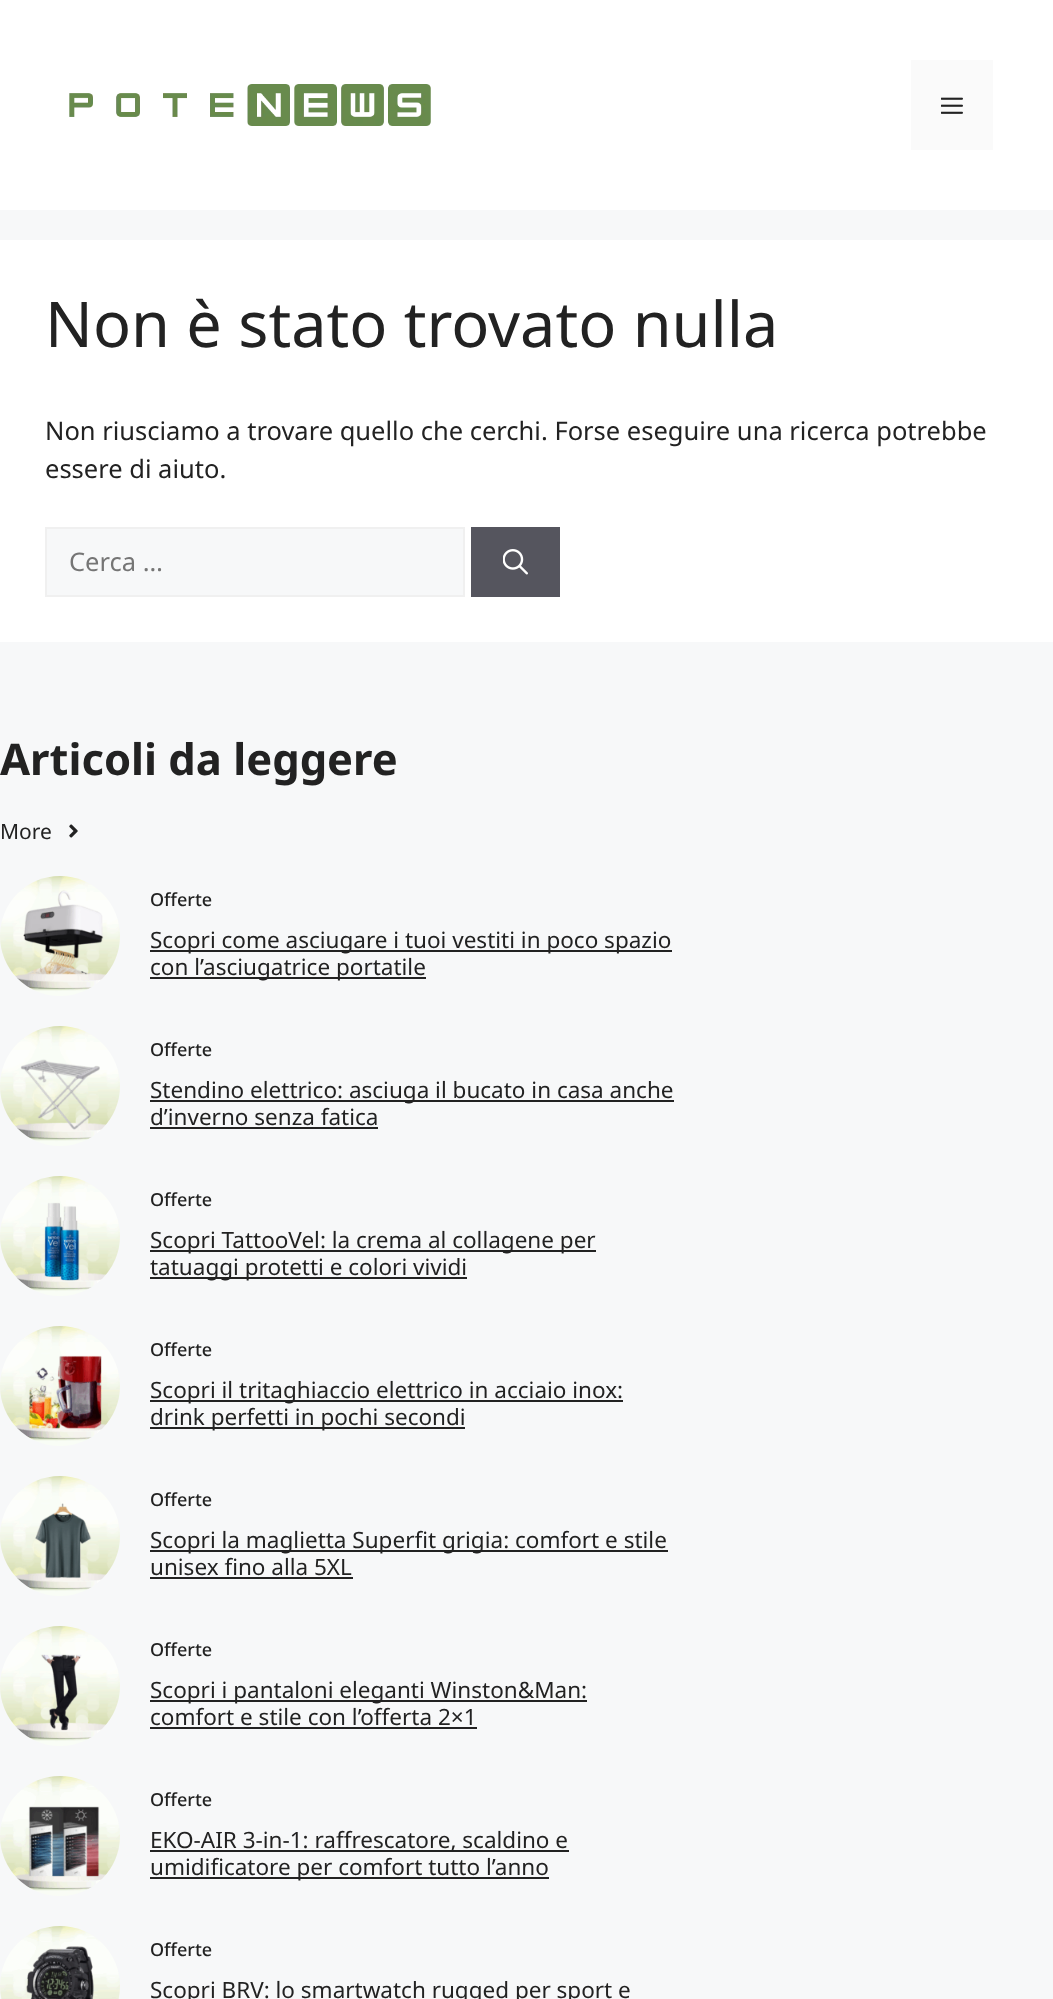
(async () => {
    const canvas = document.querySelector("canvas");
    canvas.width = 1053;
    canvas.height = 1999;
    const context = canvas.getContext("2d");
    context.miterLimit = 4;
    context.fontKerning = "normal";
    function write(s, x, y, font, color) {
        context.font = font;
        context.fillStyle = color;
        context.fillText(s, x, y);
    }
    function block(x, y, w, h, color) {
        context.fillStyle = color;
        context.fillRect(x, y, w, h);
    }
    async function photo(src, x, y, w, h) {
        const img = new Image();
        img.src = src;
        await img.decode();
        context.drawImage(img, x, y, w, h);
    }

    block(0, 0, 1053, 1999, "rgb(247, 248, 249)");
    block(0, 0, 1053, 210, "rgb(255, 255, 255)");
    await photo("media/1.png", 69, 84, 362, 42);
    block(911, 60, 82, 90, "rgb(250, 250, 250)");
    await photo("media/2.png", 941, 97, 22, 17);
    block(0, 240, 1053, 402, "rgb(255, 255, 255)");
    write("Non è stato trovato nulla", 45, 347, "63px Noto Sans", "rgb(34, 34, 34)");
    write("Non riusciamo a trovare quello che cerchi. Forse eseguire una ricerca potrebbe", 45, 440, "25.5px Noto Sans", "rgb(34, 34, 34)");
    write("essere di aiuto.", 45, 478, "25.5px Noto Sans", "rgb(34, 34, 34)");
    context.fillStyle = "rgb(247, 248, 249)";
    context.beginPath();
    context.rect(46, 528, 418, 68);
    context.fill();
    context.strokeStyle = "rgb(240, 240, 240)";
    context.lineWidth = 2;
    context.stroke();
    write("Cerca …", 69, 571, "25.5px Noto Sans", "rgb(117, 117, 117)");
    block(471, 527, 89, 70, "rgb(85, 85, 94)");
    await photo("media/3.png", 503, 549, 25, 26);
    write("Articoli da leggere", 0, 775, "bold 43.5px Noto Sans", "rgb(34, 34, 34)");
    write("More", 0, 839, "21px Noto Sans", "rgb(34, 34, 34)");
    await photo("media/4.png", 69, 824, 9, 14);
    await photo("media/5.png", 0, 876, 120, 120);
    write("Offerte", 150, 906, "500 18px Noto Sans", "rgb(34, 34, 34)");
    block(150, 950, 522, 2, "rgb(34, 34, 34)");
    write("Scopri come asciugare i tuoi vestiti in poco spazio", 150, 948, "22.5px Noto Sans", "rgb(34, 34, 34)");
    block(150, 977, 276, 2, "rgb(34, 34, 34)");
    write("con l’asciugatrice portatile", 150, 975, "22.5px Noto Sans", "rgb(34, 34, 34)");
    await photo("media/6.png", 0, 1026, 120, 120);
    write("Offerte", 150, 1056, "500 18px Noto Sans", "rgb(34, 34, 34)");
    block(150, 1100, 524, 2, "rgb(34, 34, 34)");
    write("Stendino elettrico: asciuga il bucato in casa anche", 150, 1098, "22.5px Noto Sans", "rgb(34, 34, 34)");
    write("d’inverno senza fatica", 150, 1125, "22.5px Noto Sans", "rgb(34, 34, 34)");
    block(150, 1127, 228, 2, "rgb(34, 34, 34)");
    await photo("media/7.png", 0, 1176, 120, 120);
    write("Offerte", 150, 1206, "500 18px Noto Sans", "rgb(34, 34, 34)");
    block(150, 1250, 446, 2, "rgb(34, 34, 34)");
    write("Scopri TattooVel: la crema al collagene per", 150, 1248, "22.5px Noto Sans", "rgb(34, 34, 34)");
    block(150, 1277, 317, 2, "rgb(34, 34, 34)");
    write("tatuaggi protetti e colori vividi", 150, 1275, "22.5px Noto Sans", "rgb(34, 34, 34)");
    await photo("media/8.png", 0, 1326, 120, 120);
    write("Offerte", 150, 1356, "500 18px Noto Sans", "rgb(34, 34, 34)");
    block(150, 1400, 473, 2, "rgb(34, 34, 34)");
    write("Scopri il tritaghiaccio elettrico in acciaio inox:", 150, 1398, "22.5px Noto Sans", "rgb(34, 34, 34)");
    block(150, 1427, 315, 2, "rgb(34, 34, 34)");
    write("drink perfetti in pochi secondi", 150, 1425, "22.5px Noto Sans", "rgb(34, 34, 34)");
    await photo("media/9.png", 0, 1476, 120, 120);
    write("Offerte", 150, 1506, "500 18px Noto Sans", "rgb(34, 34, 34)");
    block(150, 1550, 518, 2, "rgb(34, 34, 34)");
    write("Scopri la maglietta Superfit grigia: comfort e stile", 150, 1548, "22.5px Noto Sans", "rgb(34, 34, 34)");
    write("unisex fino alla 5XL", 150, 1575, "22.5px Noto Sans", "rgb(34, 34, 34)");
    block(150, 1577, 203, 2, "rgb(34, 34, 34)");
    await photo("media/10.png", 0, 1626, 120, 120);
    write("Offerte", 150, 1656, "500 18px Noto Sans", "rgb(34, 34, 34)");
    block(150, 1700, 437, 2, "rgb(34, 34, 34)");
    write("Scopri i pantaloni eleganti Winston&Man:", 150, 1698, "22.5px Noto Sans", "rgb(34, 34, 34)");
    write("comfort e stile con l’offerta 2×1", 150, 1725, "22.5px Noto Sans", "rgb(34, 34, 34)");
    block(150, 1727, 327, 2, "rgb(34, 34, 34)");
    await photo("media/11.png", 0, 1776, 120, 120);
    write("Offerte", 150, 1806, "500 18px Noto Sans", "rgb(34, 34, 34)");
    block(150, 1850, 419, 2, "rgb(34, 34, 34)");
    write("EKO-AIR 3-in-1: raffrescatore, scaldino e", 150, 1848, "22.5px Noto Sans", "rgb(34, 34, 34)");
    block(150, 1877, 399, 2, "rgb(34, 34, 34)");
    write("umidificatore per comfort tutto l’anno", 150, 1875, "22.5px Noto Sans", "rgb(34, 34, 34)");
    await photo("media/12.png", 0, 1926, 120, 73);
    write("Offerte", 150, 1956, "500 18px Noto Sans", "rgb(34, 34, 34)");
    write("Scopri BRV: lo smartwatch rugged per sport e", 150, 1998, "22.5px Noto Sans", "rgb(34, 34, 34)");
})();
